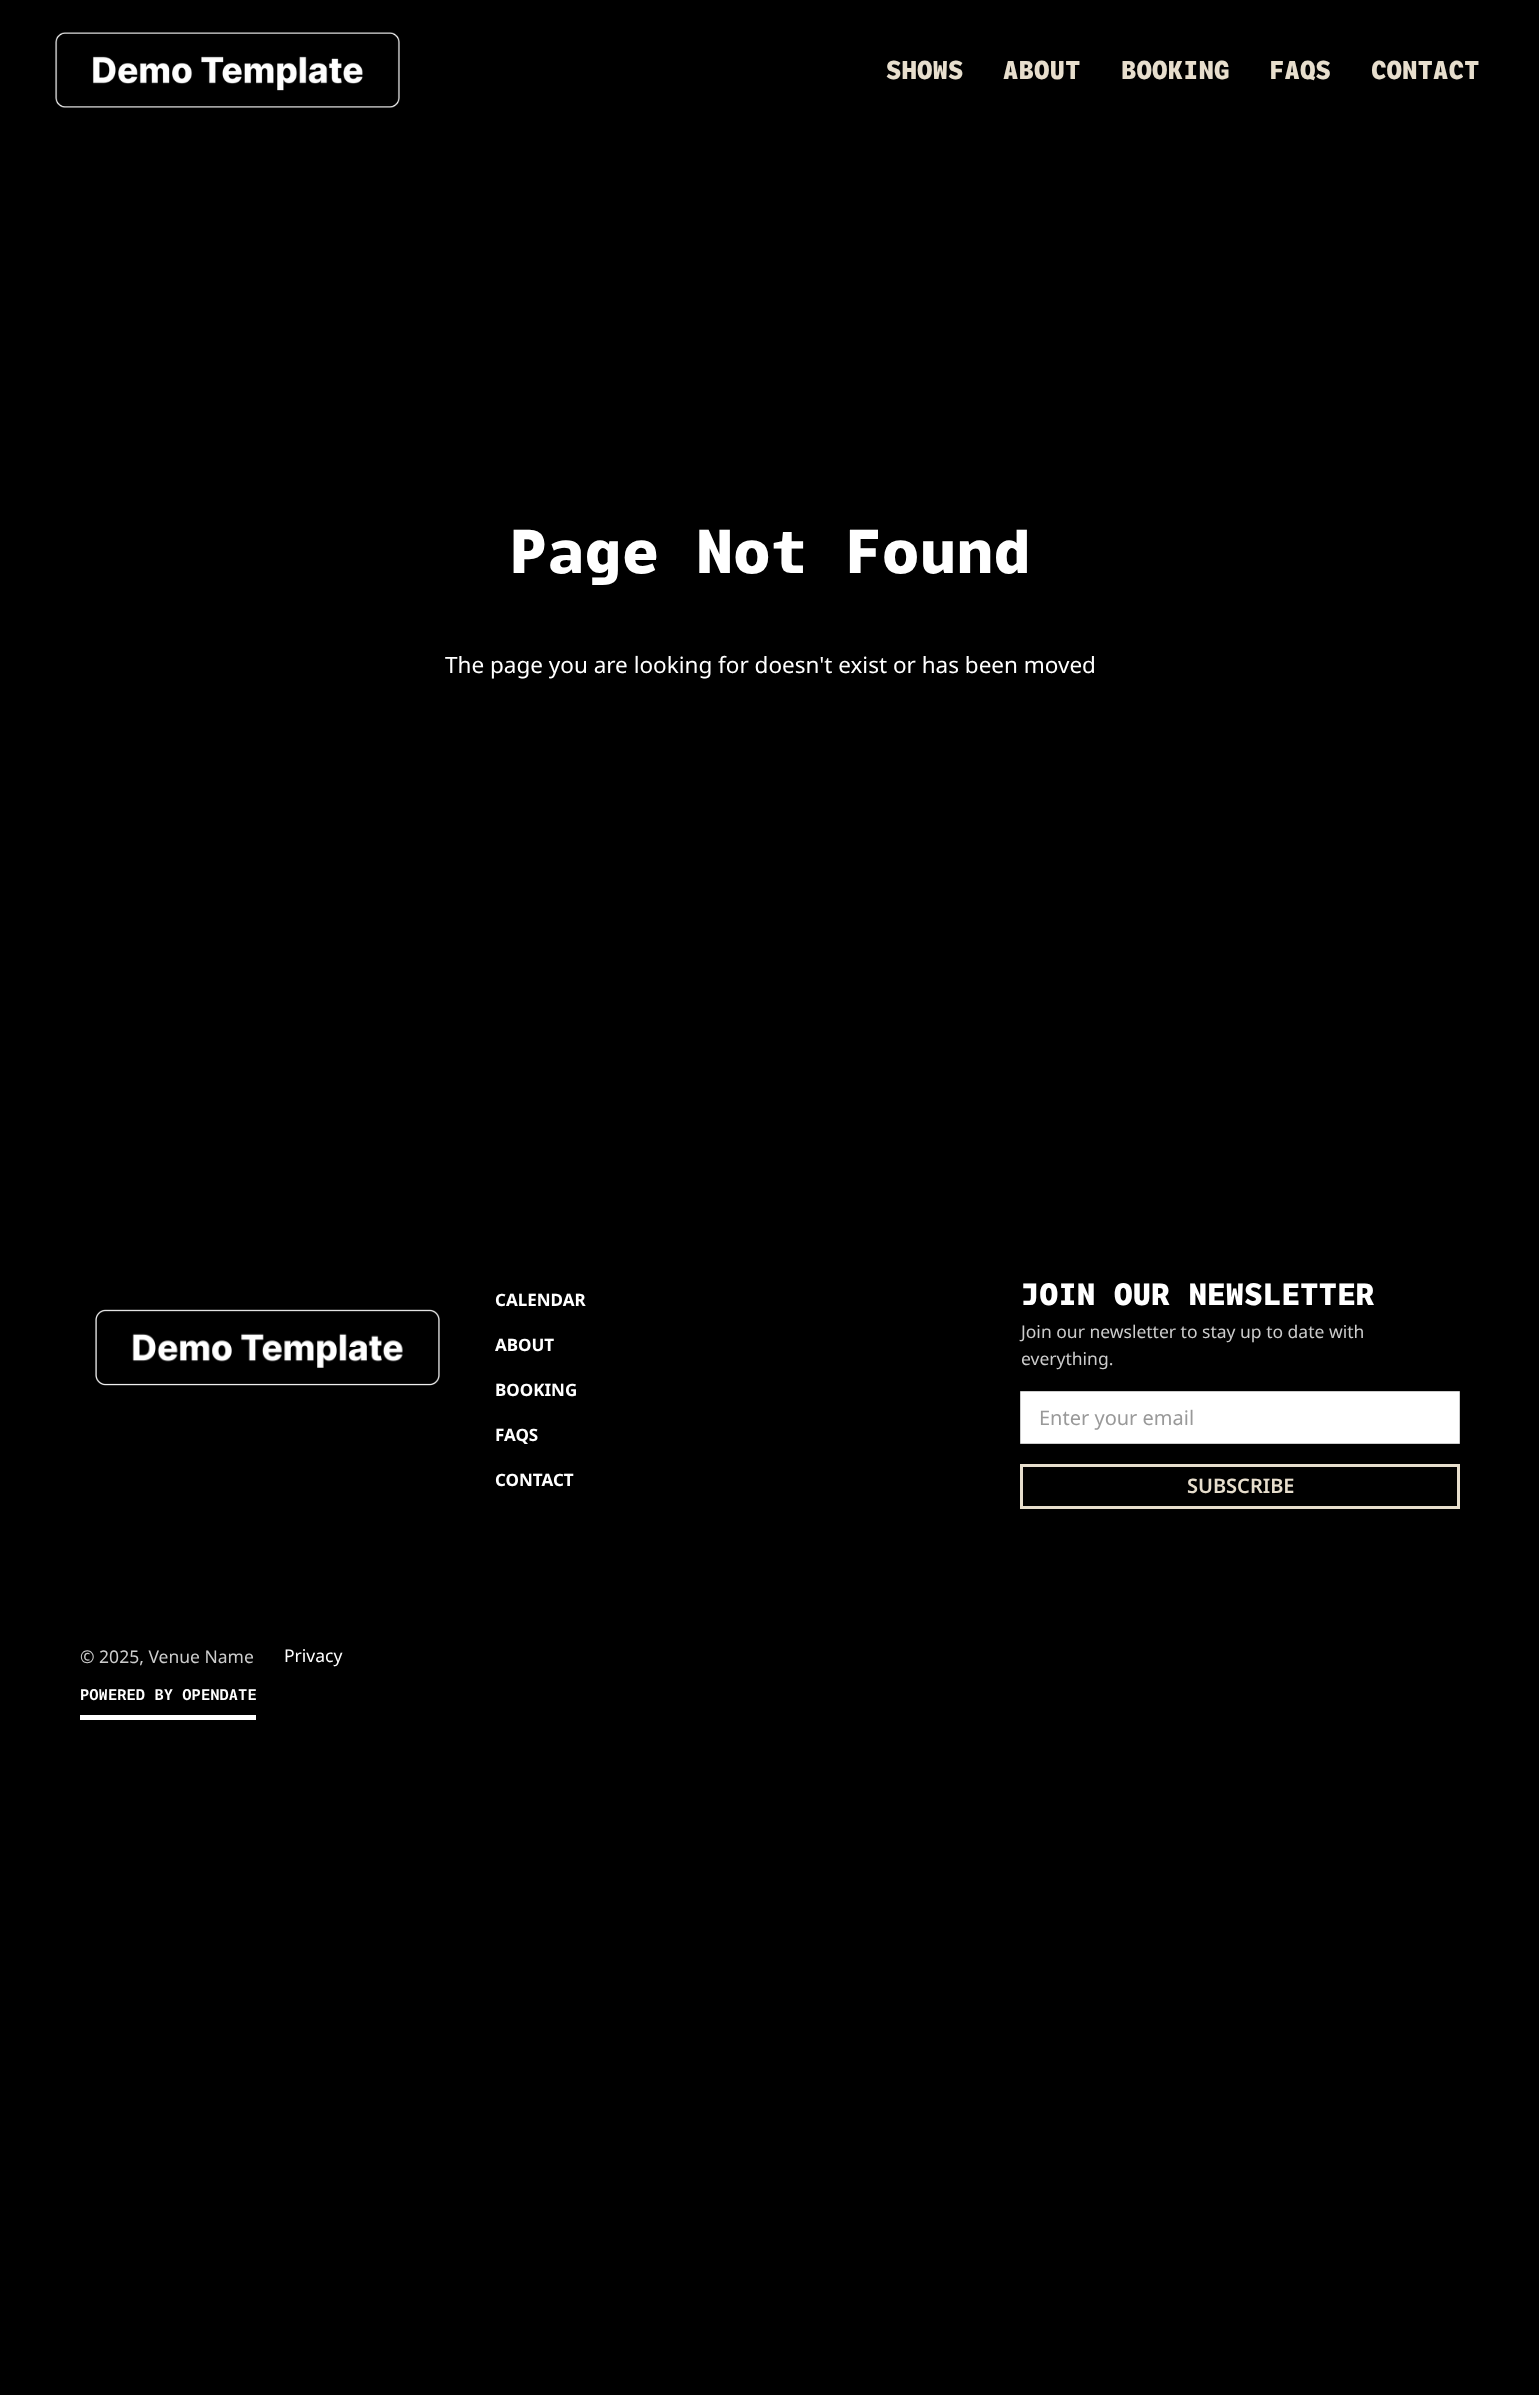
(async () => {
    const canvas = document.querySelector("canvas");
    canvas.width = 1539;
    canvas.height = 2395;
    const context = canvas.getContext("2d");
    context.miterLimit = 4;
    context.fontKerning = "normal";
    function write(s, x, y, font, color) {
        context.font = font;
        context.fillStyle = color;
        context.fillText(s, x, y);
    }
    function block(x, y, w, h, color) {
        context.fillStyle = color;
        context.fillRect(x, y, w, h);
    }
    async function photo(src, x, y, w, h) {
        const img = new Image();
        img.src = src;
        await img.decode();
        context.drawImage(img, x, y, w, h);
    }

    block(0, 0, 1539, 2395, "rgb(0, 0, 0)");
    await photo("media/1.png", 55, 32, 345, 76);
    write("SHOWS", 886, 79, "bold 25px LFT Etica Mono", "rgb(231, 222, 205)");
    write("ABOUT", 1003, 79, "bold 25px LFT Etica Mono", "rgb(231, 222, 205)");
    write("BOOKING", 1121, 79, "bold 25px LFT Etica Mono", "rgb(231, 222, 205)");
    write("FAQS", 1269, 79, "bold 25px LFT Etica Mono", "rgb(231, 222, 205)");
    write("CONTACT", 1371, 79, "bold 25px LFT Etica Mono", "rgb(231, 222, 205)");
    write("Page Not Found", 510, 573, "bold 60px LFT Etica Mono", "rgb(255, 255, 255)");
    write("The page you are looking for doesn't exist or has been moved", 445, 673, "22.5px Noto Sans", "rgb(255, 255, 255)");
    await photo("media/2.png", 95, 1309, 345, 77);
    write("CALENDAR", 495, 1306, "bold 17px Noto Sans", "rgb(255, 255, 255)");
    write("ABOUT", 495, 1351, "bold 17px Noto Sans", "rgb(255, 255, 255)");
    write("BOOKING", 495, 1396, "bold 17px Noto Sans", "rgb(255, 255, 255)");
    write("FAQS", 495, 1441, "bold 17px Noto Sans", "rgb(255, 255, 255)");
    write("CONTACT", 495, 1486, "bold 17px Noto Sans", "rgb(255, 255, 255)");
    write("JOIN OUR NEWSLETTER", 1021, 1305, "bold 30px LFT Etica Mono", "rgb(255, 255, 255)");
    write("Join our newsletter to stay up to date with", 1021, 1338, "17.5px Noto Sans", "rgb(204, 204, 204)");
    write("everything.", 1021, 1365, "17.5px Noto Sans", "rgb(204, 204, 204)");
    context.fillStyle = "rgb(255, 255, 255)";
    context.beginPath();
    context.rect(1020.5, 1391.5, 439, 52);
    context.fill();
    context.strokeStyle = "rgb(204, 204, 204)";
    context.stroke();
    write("Enter your email", 1039, 1425, "20px Noto Sans", "rgb(153, 153, 153)");
    context.strokeStyle = "rgb(231, 222, 205)";
    context.lineWidth = 3;
    context.strokeRect(1021.5, 1465.5, 437, 42);
    write("SUBSCRIBE", 1187, 1493, "600 20px Noto Sans", "rgb(231, 222, 205)");
    write("© 2025, Venue Name", 80, 1663, "17.5px Noto Sans", "rgb(204, 204, 204)");
    write("Privacy", 284, 1662, "17.5px Noto Sans", "rgb(255, 255, 255)");
    write("POWERED BY OPENDATE", 80, 1700, "600 15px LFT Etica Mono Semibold", "rgb(255, 255, 255)");
    block(80, 1715, 176, 5, "rgb(255, 255, 255)");
})();
